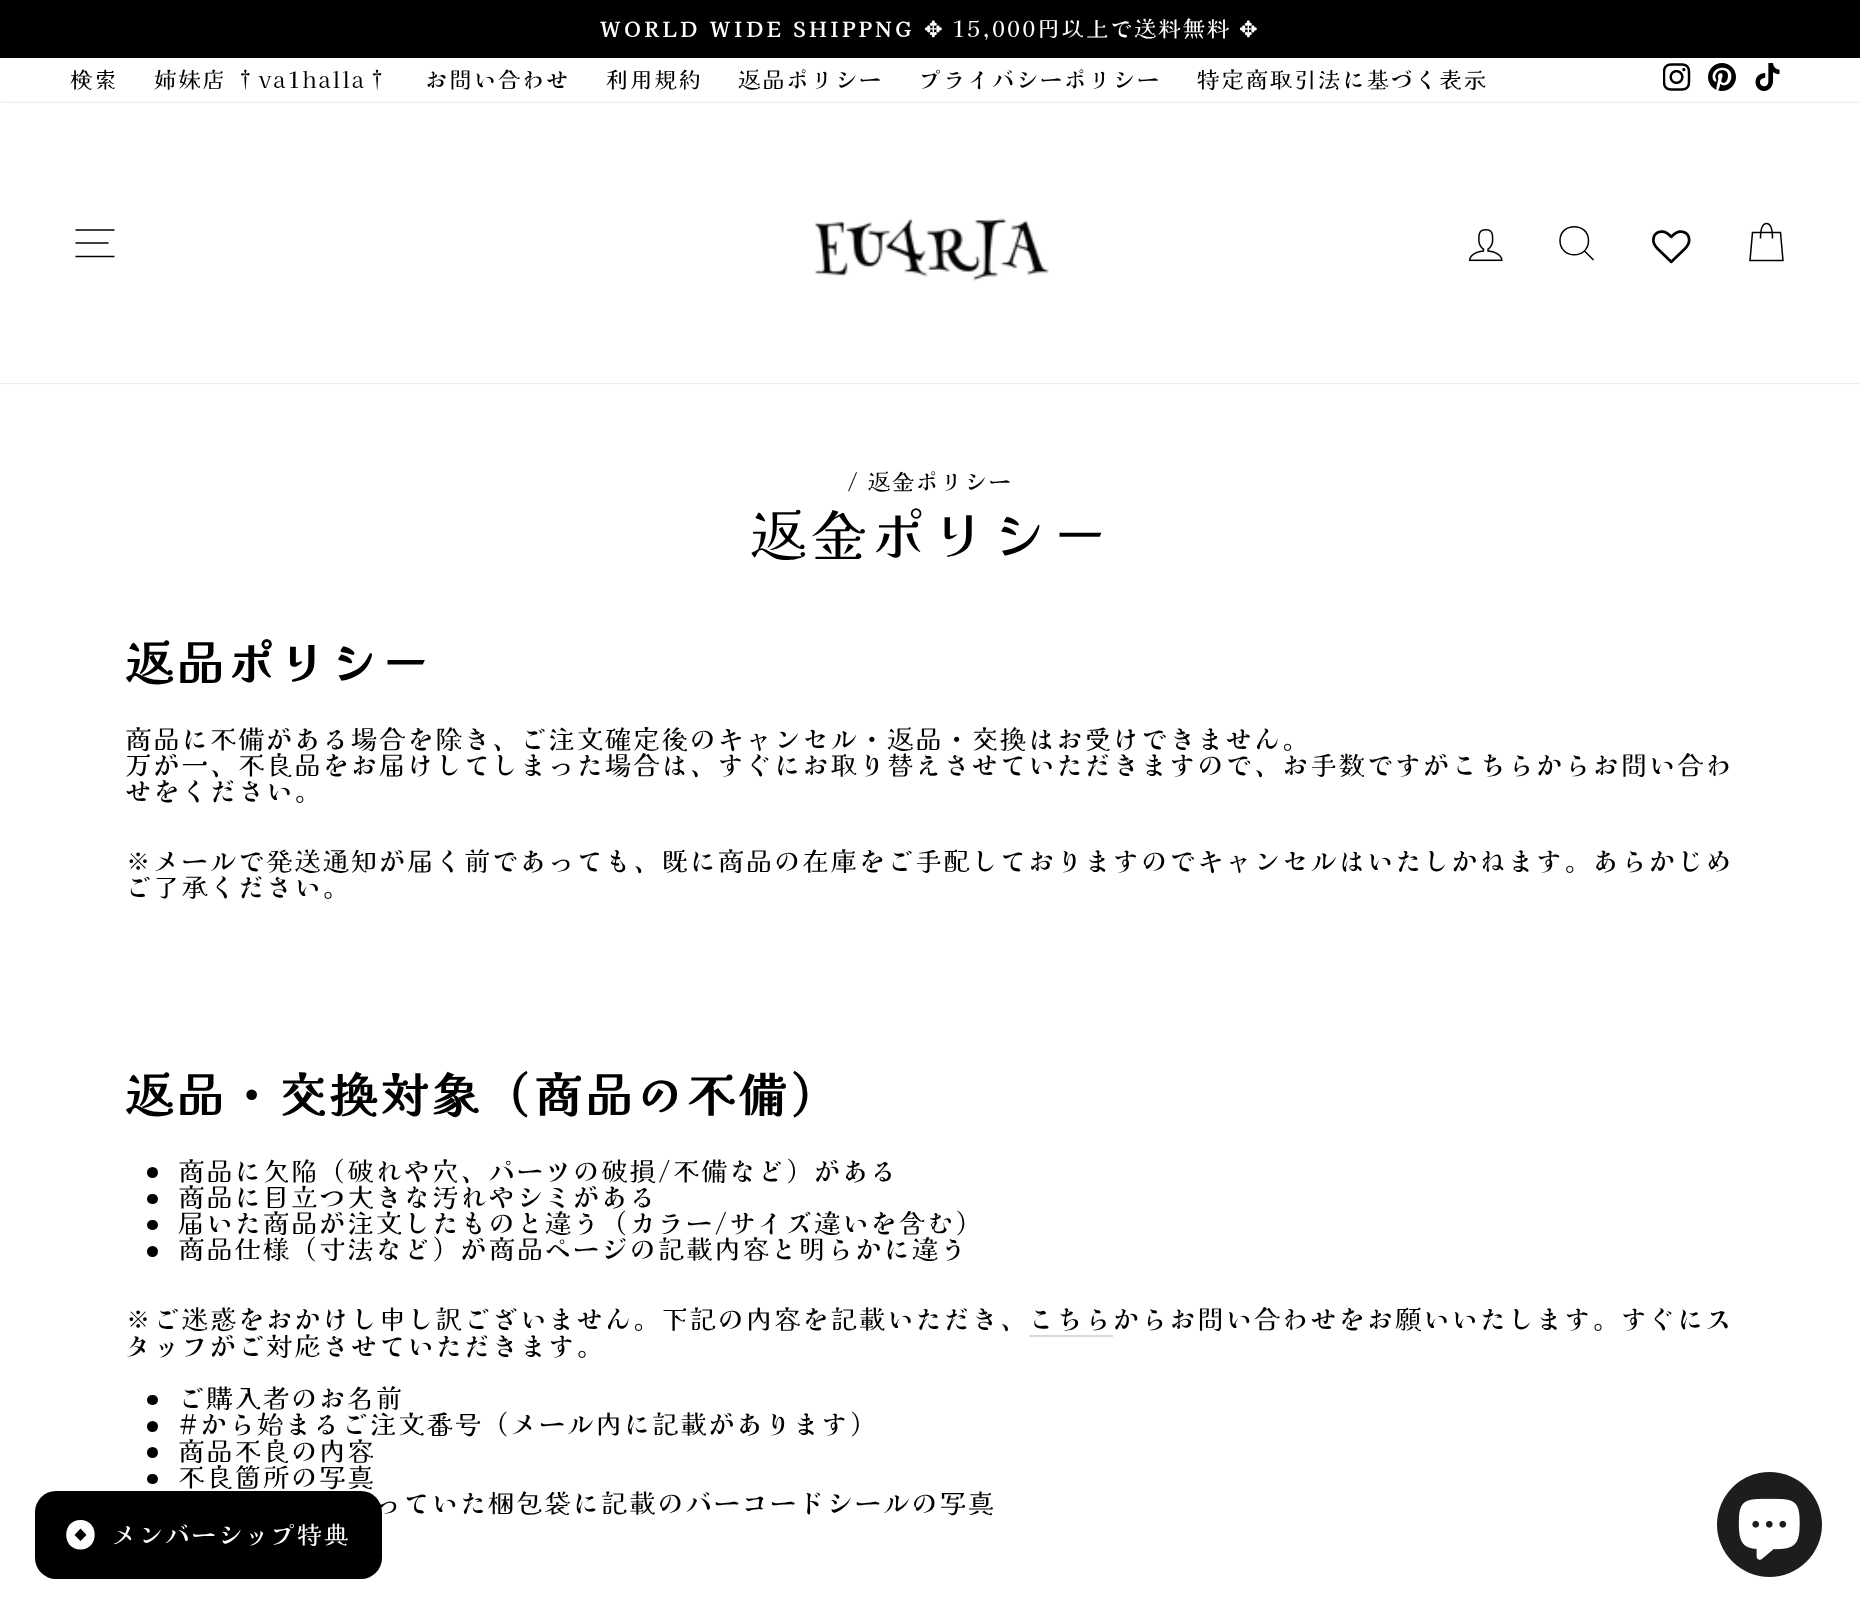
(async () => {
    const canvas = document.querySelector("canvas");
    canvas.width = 1860;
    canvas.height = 1612;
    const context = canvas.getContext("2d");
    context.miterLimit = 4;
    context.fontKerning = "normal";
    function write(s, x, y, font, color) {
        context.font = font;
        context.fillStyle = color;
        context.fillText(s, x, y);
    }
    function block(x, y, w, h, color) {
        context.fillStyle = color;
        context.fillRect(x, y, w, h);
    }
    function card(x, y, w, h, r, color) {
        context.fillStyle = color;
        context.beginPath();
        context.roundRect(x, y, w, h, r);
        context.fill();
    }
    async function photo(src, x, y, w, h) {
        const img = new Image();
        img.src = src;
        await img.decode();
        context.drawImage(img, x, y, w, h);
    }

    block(0, 0, 1860, 1612, "rgb(255, 255, 255)");
    block(0, 0, 1860, 58, "rgb(0, 0, 0)");
    context.letterSpacing = "4px";
    write("WORLD WIDE SHIPPNG", 600, 37, "bold 20.1px Kaisei Tokumin", "rgb(255, 255, 255)");
    context.letterSpacing = "1.97px";
    write("✥", 924, 37, "22.25px DejaVu Sans", "rgb(255, 255, 255)");
    write("15,000円以上で送料無料", 952, 37, "22.25px Kaisei Tokumin", "rgb(255, 255, 255)");
    write("✥", 1239, 37, "22.25px DejaVu Sans", "rgb(255, 255, 255)");
    write("検索", 70, 88, "22.25px Kaisei Tokumin", "rgb(0, 0, 0)");
    write("姉妹店 †va1halla†", 154, 88, "22.25px Kaisei Tokumin", "rgb(0, 0, 0)");
    write("お問い合わせ", 425, 88, "22.25px Kaisei Tokumin", "rgb(0, 0, 0)");
    write("利用規約", 606, 88, "22.25px Kaisei Tokumin", "rgb(0, 0, 0)");
    write("返品ポリシー", 738, 88, "22.25px Kaisei Tokumin", "rgb(0, 0, 0)");
    write("プライバシーポリシー", 919, 88, "22.25px Kaisei Tokumin", "rgb(0, 0, 0)");
    write("特定商取引法に基づく表示", 1197, 88, "22.25px Kaisei Tokumin", "rgb(0, 0, 0)");
    await photo("media/1.png", 1663, 63, 28, 28);
    await photo("media/2.png", 1708, 63, 28, 28);
    await photo("media/3.png", 1755, 63, 25, 28);
    context.fillStyle = "rgba(0, 0, 0, 0.2)";
    context.filter = "blur(1px)";
    context.beginPath();
    context.rect(0, 103, 1860, 280);
    context.fill();
    context.filter = "none";
    block(0, 103, 1860, 280, "rgb(255, 255, 255)");
    context.beginPath();
    context.moveTo(75.5, 230);
    context.lineTo(114.5, 230);
    context.moveTo(75.5, 243);
    context.lineTo(108.5, 243);
    context.moveTo(75.5, 256.5);
    context.lineTo(114.5, 256.5);
    context.strokeStyle = "rgb(0, 0, 0)";
    context.lineWidth = 1.5;
    context.stroke();
    await photo("media/4.png", 815, 218, 234, 63);
    await photo("media/5.png", 1468, 229, 35, 33);
    context.beginPath();
    context.moveTo(1588.5, 240.5);
    context.bezierCurveTo(1588.5, 259.5, 1560, 259.5, 1560, 240.5);
    context.bezierCurveTo(1560, 222, 1588.5, 222, 1588.5, 240.5);
    context.closePath();
    context.moveTo(1593.5, 260);
    context.lineTo(1584.5, 251);
    context.stroke();
    await photo("media/6.png", 1652, 230, 39, 34);
    context.beginPath();
    context.moveTo(1760.5, 238.5);
    context.bezierCurveTo(1760.5, 226.5, 1763, 223.5, 1766.5, 223.5);
    context.bezierCurveTo(1770, 223.5, 1772.5, 226.5, 1772.5, 238.5);
    context.moveTo(1752.5, 232.5);
    context.lineTo(1780.5, 232.5);
    context.lineTo(1783, 260.5);
    context.lineTo(1750, 260.5);
    context.closePath();
    context.stroke();
    write("/ 返金ポリシー", 847, 490, "22.25px Kaisei Tokumin", "rgb(0, 0, 0)");
    context.letterSpacing = "4.25px";
    write("返金ポリシー", 750, 556, "56px Kaisei Opti", "rgb(0, 0, 0)");
    context.letterSpacing = "3.5px";
    write("返品ポリシー", 125, 681, "bold 47.6px Kaisei Opti", "rgb(0, 0, 0)");
    context.letterSpacing = "1.97px";
    write("商品に不備がある場合を除き、ご注文確定後のキャンセル・返品・交換はお受けできません。", 125, 749, "26.25px Kaisei Tokumin", "rgb(0, 0, 0)");
    write("万が一、不良品をお届けしてしまった場合は、すぐにお取り替えさせていただきますので、お手数ですがこちらからお問い合わ", 125, 775, "26.25px Kaisei Tokumin", "rgb(0, 0, 0)");
    write("せをください。", 125, 801, "26.25px Kaisei Tokumin", "rgb(0, 0, 0)");
    write("※メールで発送通知が届く前であっても、既に商品の在庫をご手配しておりますのでキャンセルはいたしかねます。あらかじめ", 125, 871, "26.25px Kaisei Tokumin", "rgb(0, 0, 0)");
    write("ご了承ください。", 125, 897, "26.25px Kaisei Tokumin", "rgb(0, 0, 0)");
    context.letterSpacing = "3.5px";
    write("返品・交換対象（商品の不備）", 125, 1113, "bold 47.6px Kaisei Opti", "rgb(0, 0, 0)");
    context.beginPath();
    context.arc(152.5, 1172.5, 5.5, 0, Math.PI * 2);
    context.fill();
    context.letterSpacing = "1.97px";
    write("商品に欠陥（破れや穴、パーツの破損/不備など）がある", 178, 1181, "26.25px Kaisei Tokumin", "rgb(0, 0, 0)");
    card(147, 1194, 11, 10, 5, "rgb(0, 0, 0)");
    write("商品に目立つ大きな汚れやシミがある", 178, 1207, "26.25px Kaisei Tokumin", "rgb(0, 0, 0)");
    card(147, 1220, 11, 10, 5, "rgb(0, 0, 0)");
    write("届いた商品が注文したものと違う（カラー/サイズ違いを含む）", 178, 1233, "26.25px Kaisei Tokumin", "rgb(0, 0, 0)");
    context.beginPath();
    context.arc(152.5, 1251.5, 5.5, 0, Math.PI * 2);
    context.fill();
    write("商品仕様（寸法など）が商品ページの記載内容と明らかに違う", 178, 1259, "26.25px Kaisei Tokumin", "rgb(0, 0, 0)");
    write("※ご迷惑をおかけし申し訳ございません。下記の内容を記載いただき、こちらからお問い合わせをお願いいたします。すぐにス", 125, 1329, "26.25px Kaisei Tokumin", "rgb(0, 0, 0)");
    write("タッフがご対応させていただきます。", 125, 1356, "26.25px Kaisei Tokumin", "rgb(0, 0, 0)");
    block(1029, 1335, 84, 2, "rgb(217, 217, 217)");
    card(147, 1395, 11, 10, 5, "rgb(0, 0, 0)");
    write("ご購入者のお名前", 178, 1408, "26.25px Kaisei Tokumin", "rgb(0, 0, 0)");
    context.beginPath();
    context.arc(152.5, 1426.5, 5.5, 0, Math.PI * 2);
    context.fill();
    write("#から始まるご注文番号（メール内に記載があります）", 178, 1434, "26.25px Kaisei Tokumin", "rgb(0, 0, 0)");
    context.beginPath();
    context.arc(152.5, 1452.5, 5.5, 0, Math.PI * 2);
    context.fill();
    write("商品不良の内容", 178, 1461, "26.25px Kaisei Tokumin", "rgb(0, 0, 0)");
    card(147, 1474, 11, 10, 5, "rgb(0, 0, 0)");
    write("不良箇所の写真", 178, 1487, "26.25px Kaisei Tokumin", "rgb(0, 0, 0)");
    write("っていた梱包袋に記載のバーコードシールの写真", 375, 1513, "26.25px Kaisei Tokumin", "rgb(0, 0, 0)");
    context.fillStyle = "rgb(28, 29, 29)";
    context.beginPath();
    context.arc(1769.5, 1524.5, 52.5, 0, Math.PI * 2);
    context.fill();
    await photo("media/7.png", 1738, 1498, 62, 62);
    card(35, 1491, 347, 88, 21, "rgb(0, 0, 0)");
    context.fillStyle = "rgb(255, 255, 255)";
    context.beginPath();
    context.moveTo(80.5, 1549.5);
    context.bezierCurveTo(61.5, 1549.5, 61.5, 1520, 80.5, 1520);
    context.bezierCurveTo(99.5, 1520, 99.5, 1549.5, 80.5, 1549.5);
    context.closePath();
    context.moveTo(80.5, 1528.5);
    context.lineTo(74.5, 1535);
    context.lineTo(80.5, 1541);
    context.lineTo(86.5, 1535);
    context.closePath();
    context.fill();
    write("メンバーシップ特典", 112, 1544, "24.5px Kaisei Tokumin", "rgb(255, 255, 255)");
})();
